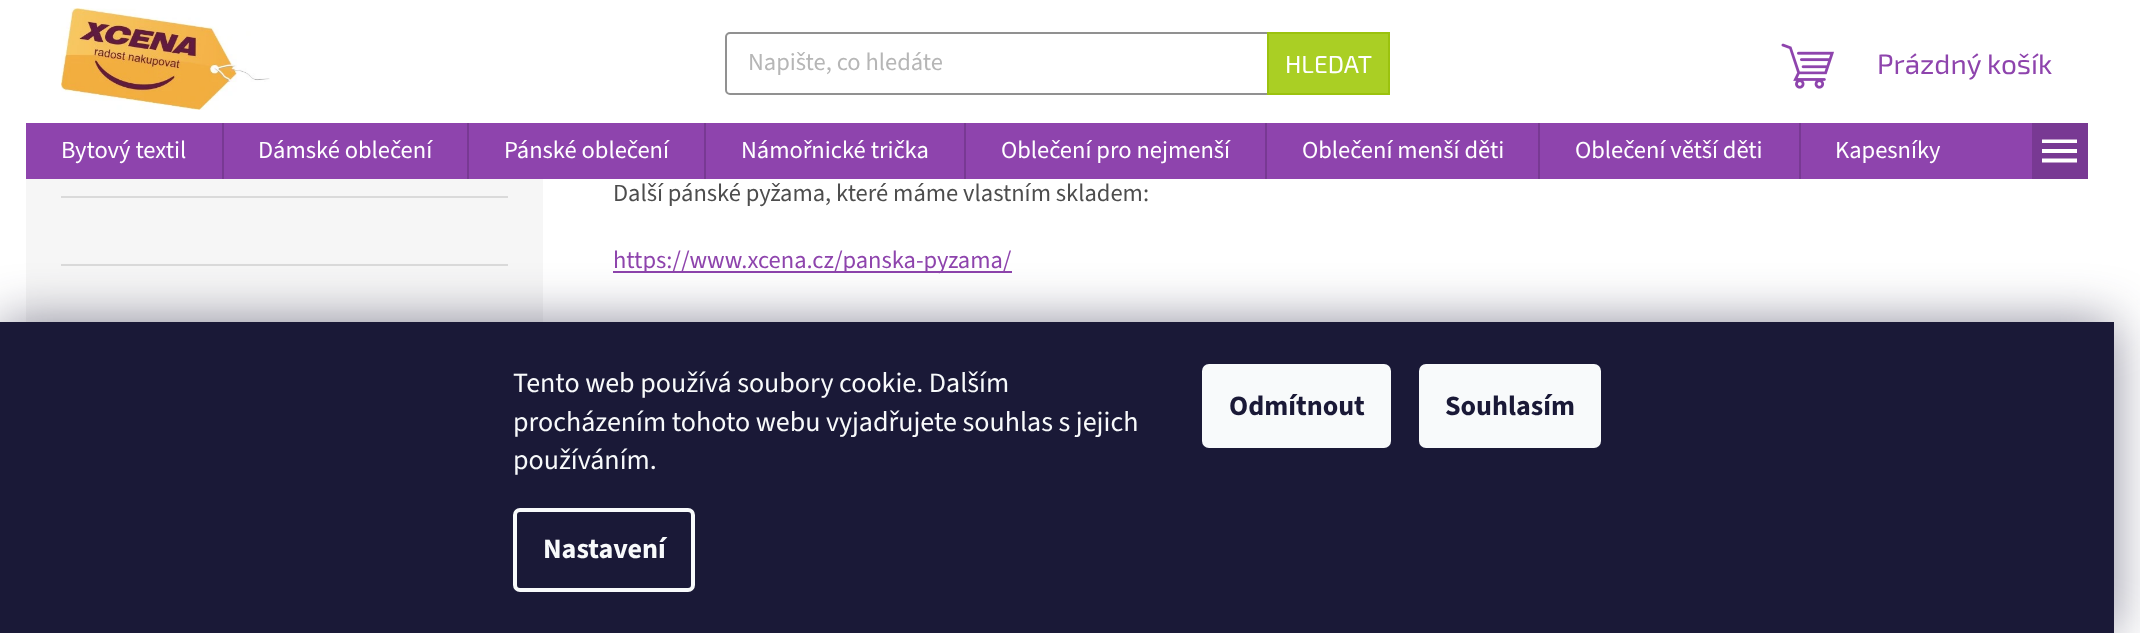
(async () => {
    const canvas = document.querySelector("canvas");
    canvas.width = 2140;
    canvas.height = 633;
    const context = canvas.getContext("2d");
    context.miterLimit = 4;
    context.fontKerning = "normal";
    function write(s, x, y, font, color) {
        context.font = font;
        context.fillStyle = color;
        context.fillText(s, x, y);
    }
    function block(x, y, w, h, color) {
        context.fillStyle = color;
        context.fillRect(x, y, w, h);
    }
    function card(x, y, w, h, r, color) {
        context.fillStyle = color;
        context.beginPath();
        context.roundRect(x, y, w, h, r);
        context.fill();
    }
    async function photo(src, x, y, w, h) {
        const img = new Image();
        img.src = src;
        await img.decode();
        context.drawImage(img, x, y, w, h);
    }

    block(0, 0, 2140, 633, "rgb(255, 255, 255)");
    await photo("media/1.png", 61, 8, 209, 102);
    context.beginPath();
    context.roundRect(726, 33, 663, 61, 4);
    context.strokeStyle = "rgb(145, 145, 145)";
    context.lineWidth = 2;
    context.stroke();
    write("Napište, co hledáte", 748, 70, "24.5px 'Source Sans 3'", "rgb(182, 182, 182)");
    context.fillStyle = "rgb(170, 207, 36)";
    context.beginPath();
    context.rect(1268, 33, 121, 61);
    context.fill();
    context.strokeStyle = "rgb(155, 194, 14)";
    context.stroke();
    write("HLEDAT", 1285, 73, "24.5px 'Exo 2'", "rgb(255, 255, 255)");
    await photo("media/2.png", 1781, 43, 53, 46);
    write("Prázdný košík", 1877, 74, "28px 'Exo 2'", "rgb(142, 68, 173)");
    block(26, 123, 2006, 56, "rgb(142, 68, 173)");
    write("Bytový textil", 61, 158, "24.5px 'Source Sans 3'", "rgb(255, 255, 255)");
    block(222, 123, 2, 56, "rgb(120, 57, 147)");
    write("Dámské oblečení", 258, 158, "24.5px 'Source Sans 3'", "rgb(255, 255, 255)");
    block(467, 123, 2, 56, "rgb(120, 57, 147)");
    write("Pánské oblečení", 504, 158, "24.5px 'Source Sans 3'", "rgb(255, 255, 255)");
    block(704, 123, 2, 56, "rgb(120, 57, 147)");
    write("Námořnické trička", 741, 158, "24.5px 'Source Sans 3'", "rgb(255, 255, 255)");
    block(964, 123, 2, 56, "rgb(120, 57, 147)");
    write("Oblečení pro nejmenší", 1001, 158, "24.5px 'Source Sans 3'", "rgb(255, 255, 255)");
    block(1265, 123, 2, 56, "rgb(120, 57, 147)");
    write("Oblečení menší děti", 1302, 158, "24.5px 'Source Sans 3'", "rgb(255, 255, 255)");
    block(1538, 123, 2, 56, "rgb(120, 57, 147)");
    write("Oblečení větší děti", 1575, 158, "24.5px 'Source Sans 3'", "rgb(255, 255, 255)");
    block(1799, 123, 2, 56, "rgb(120, 57, 147)");
    write("Kapesníky", 1835, 158, "24.5px 'Source Sans 3'", "rgb(255, 255, 255)");
    block(2032, 123, 56, 56, "rgb(120, 57, 147)");
    context.fillStyle = "rgb(255, 255, 255)";
    context.beginPath();
    context.moveTo(2042, 162.5);
    context.lineTo(2077, 162.5);
    context.lineTo(2077, 158.5);
    context.lineTo(2042, 158.5);
    context.closePath();
    context.moveTo(2042, 153);
    context.lineTo(2077, 153);
    context.lineTo(2077, 149);
    context.lineTo(2042, 149);
    context.closePath();
    context.moveTo(2042, 139.5);
    context.lineTo(2042, 143);
    context.lineTo(2077, 143);
    context.lineTo(2077, 139.5);
    context.closePath();
    context.fill();
    block(26, 179, 517, 143, "rgb(246, 246, 246)");
    block(61, 196, 447, 2, "rgb(218, 218, 218)");
    block(61, 264, 447, 2, "rgb(218, 218, 218)");
    write("Další pánské pyžama, které máme vlastním skladem:", 613, 201, "24.5px 'Source Sans 3'", "rgb(77, 77, 77)");
    block(613, 271, 399, 2, "rgb(142, 68, 173)");
    write("https://www.xcena.cz/panska-pyzama/", 613, 268, "24.5px 'Source Sans 3'", "rgb(142, 68, 173)");
    context.fillStyle = "rgba(27, 25, 57, 0.5)";
    context.filter = "blur(26px)";
    context.beginPath();
    context.rect(0, 322, 2114, 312);
    context.fill();
    context.filter = "none";
    block(0, 322, 2114, 311, "rgb(26, 25, 55)");
    write("Tento web používá soubory cookie. Dalším", 513, 392, "28px 'Source Sans 3'", "rgb(248, 250, 251)");
    write("procházením tohoto webu vyjadřujete souhlas s jejich", 513, 431, "28px 'Source Sans 3'", "rgb(248, 250, 251)");
    write("používáním.", 513, 469, "28px 'Source Sans 3'", "rgb(248, 250, 251)");
    context.beginPath();
    context.roundRect(515, 510, 178, 80, 5);
    context.strokeStyle = "rgb(248, 250, 251)";
    context.lineWidth = 4;
    context.stroke();
    write("Nastavení", 543, 558, "bold 28px 'Source Sans 3'", "rgb(248, 250, 251)");
    card(1202, 364, 189, 84, 7, "rgb(248, 250, 251)");
    write("Odmítnout", 1229, 415, "bold 28px 'Source Sans 3'", "rgb(26, 25, 55)");
    card(1419, 364, 182, 84, 7, "rgb(248, 250, 251)");
    write("Souhlasím", 1445, 415, "bold 28px 'Source Sans 3'", "rgb(26, 25, 55)");
})();
